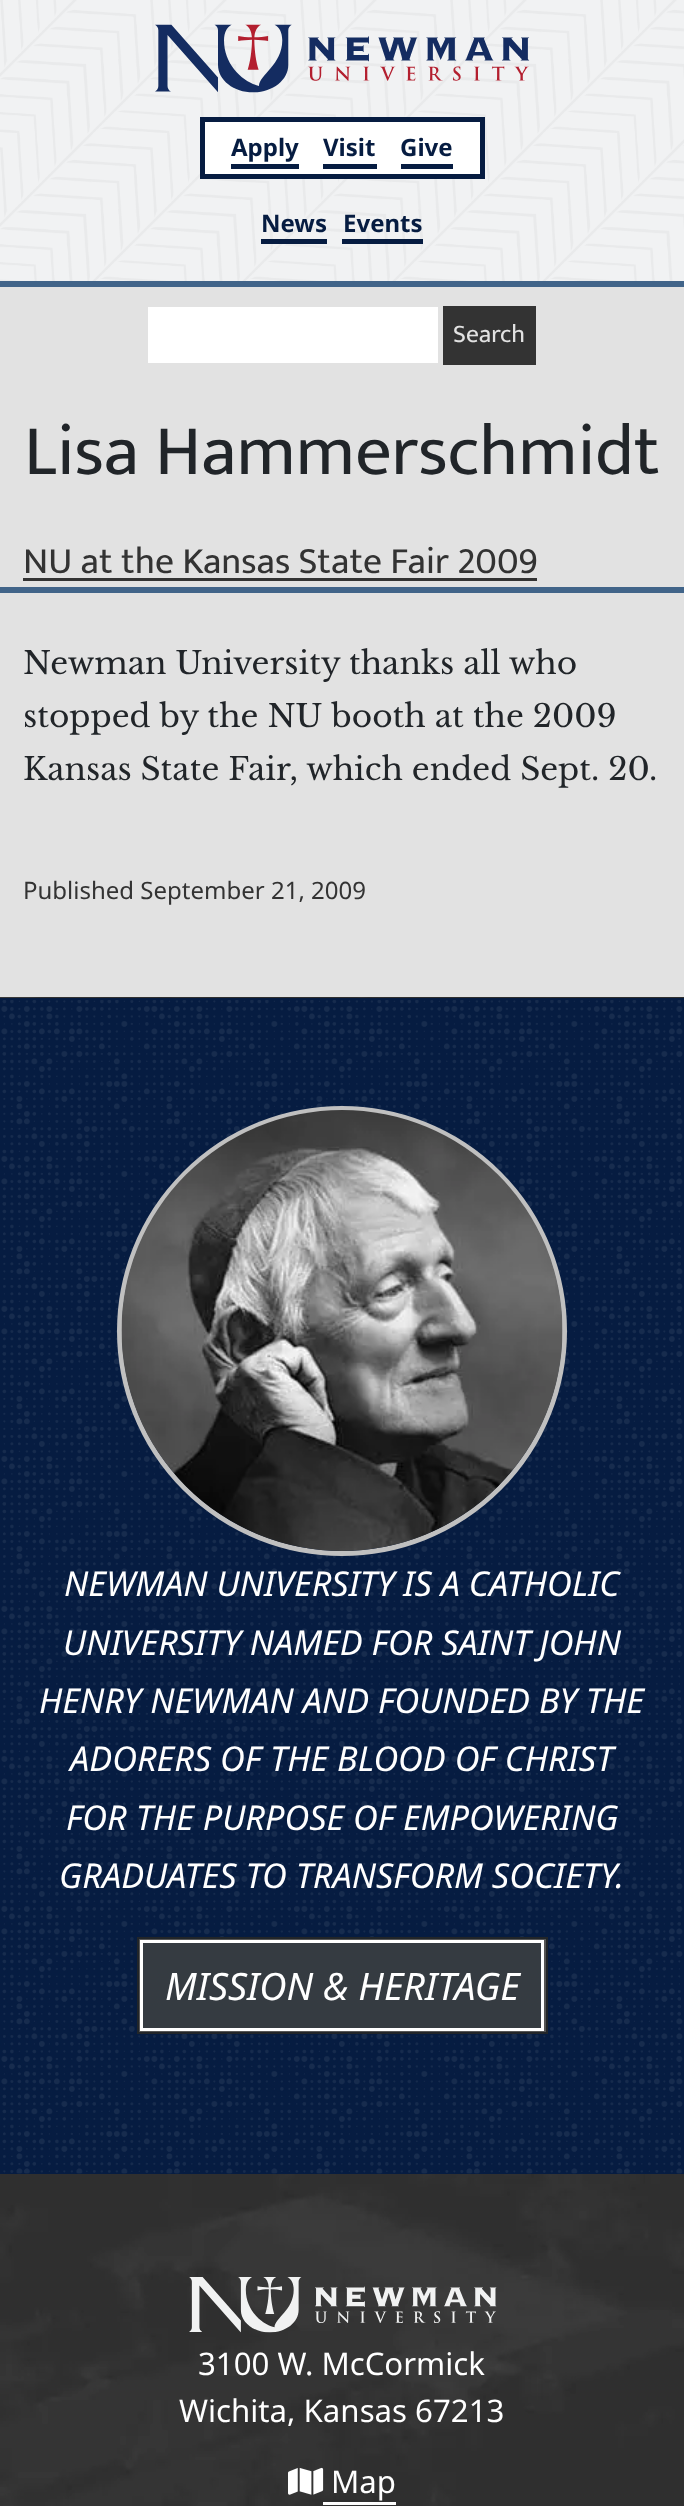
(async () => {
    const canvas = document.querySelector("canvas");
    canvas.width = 684;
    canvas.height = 2506;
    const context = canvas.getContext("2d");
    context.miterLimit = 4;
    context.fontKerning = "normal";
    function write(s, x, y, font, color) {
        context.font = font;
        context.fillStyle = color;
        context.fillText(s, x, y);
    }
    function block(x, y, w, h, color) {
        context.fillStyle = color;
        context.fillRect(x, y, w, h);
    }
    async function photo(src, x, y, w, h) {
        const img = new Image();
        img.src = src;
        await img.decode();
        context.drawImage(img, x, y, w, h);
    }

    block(0, 0, 684, 2506, "rgb(226, 226, 226)");
    block(0, 0, 684, 281, "rgb(248, 249, 250)");
    await photo("media/1.png", 0, 0, 684, 281);
    block(0, 281, 684, 6, "rgb(65, 100, 137)");
    await photo("media/2.png", 155, 24, 375, 69);
    context.fillStyle = "rgb(255, 255, 255)";
    context.beginPath();
    context.rect(202.5, 119.5, 280, 57);
    context.fill();
    context.strokeStyle = "rgb(6, 28, 65)";
    context.lineWidth = 5;
    context.stroke();
    write("Apply", 231, 156, "bold 24px Noto Sans", "rgb(6, 28, 65)");
    block(231, 164, 68, 5, "rgb(6, 28, 65)");
    write("Visit", 323, 156, "bold 24px Noto Sans", "rgb(6, 28, 65)");
    block(323, 164, 54, 5, "rgb(6, 28, 65)");
    write("Give", 400, 156, "bold 24px Noto Sans", "rgb(6, 28, 65)");
    block(401, 164, 52, 5, "rgb(6, 28, 65)");
    write("News", 261, 232, "bold 24px Noto Sans", "rgb(6, 28, 65)");
    block(261, 239, 66, 5, "rgb(6, 28, 65)");
    write("Events", 343, 232, "bold 24px Noto Sans", "rgb(6, 28, 65)");
    block(342, 239, 81, 5, "rgb(6, 28, 65)");
    block(148, 307, 290, 56, "rgb(255, 255, 255)");
    block(443, 306, 93, 59, "rgb(51, 51, 51)");
    write("Search", 453, 342, "25.5px Mukta", "rgb(226, 226, 226)");
    write("Lisa Hammerschmidt", 24, 474, "72px Mukta", "rgb(33, 37, 41)");
    block(0, 587, 684, 6, "rgb(65, 100, 137)");
    write("NU at the Kansas State Fair 2009", 23, 573, "37.5px Mukta", "rgb(51, 51, 51)");
    block(23, 578, 514, 3, "rgb(51, 51, 51)");
    write("Newman University thanks all who", 23, 674, "31.2px Libre Baskerville", "rgb(33, 37, 41)");
    write("stopped by the NU booth at the 2009", 23, 727, "31.2px Libre Baskerville", "rgb(33, 37, 41)");
    write("Kansas State Fair, which ended Sept. 20.", 23, 780, "31.2px Libre Baskerville", "rgb(33, 37, 41)");
    write("Published September 21, 2009", 23, 899, "24px Noto Sans", "rgb(51, 51, 51)");
    await photo("media/3.png", 0, 997, 684, 1509);
    block(0, 998, 684, 1176, "rgb(6, 28, 65)");
    await photo("media/4.png", 1, 1000, 682, 1174);
    context.beginPath();
    context.arc(342, 1331, 222.5, 0, Math.PI * 2);
    context.strokeStyle = "rgb(192, 192, 192)";
    context.stroke();
    await photo("media/5.png", 121, 1110, 442, 441);
    write("NEWMAN UNIVERSITY IS A CATHOLIC", 64, 1596, "italic 34.3px Noto Sans", "rgb(255, 255, 255)");
    write("UNIVERSITY NAMED FOR SAINT JOHN", 63, 1655, "italic 34.3px Noto Sans", "rgb(255, 255, 255)");
    write("HENRY NEWMAN AND FOUNDED BY THE", 39, 1713, "italic 34.3px Noto Sans", "rgb(255, 255, 255)");
    write("ADORERS OF THE BLOOD OF CHRIST", 70, 1771, "italic 34.3px Noto Sans", "rgb(255, 255, 255)");
    write("FOR THE PURPOSE OF EMPOWERING", 66, 1830, "italic 34.3px Noto Sans", "rgb(255, 255, 255)");
    write("GRADUATES TO TRANSFORM SOCIETY.", 59, 1888, "italic 34.3px Noto Sans", "rgb(255, 255, 255)");
    context.fillStyle = "rgb(53, 59, 65)";
    context.beginPath();
    context.rect(140.5, 1940.5, 403, 90);
    context.fill();
    context.strokeStyle = "rgb(255, 255, 255)";
    context.stroke();
    context.strokeStyle = "rgb(85, 85, 85)";
    context.lineWidth = 2;
    context.strokeRect(139, 1939, 406, 93);
    context.strokeStyle = "rgb(33, 37, 41)";
    context.strokeRect(138, 1938, 409, 95);
    write("MISSION & HERITAGE", 165, 2000, "italic 37.75px Noto Sans", "rgb(255, 255, 255)");
    await photo("media/6.png", 189, 2277, 308, 56);
    write("3100 W. McCormick", 198, 2375, "31.2px Noto Sans", "rgb(255, 255, 255)");
    write("Wichita, Kansas 67213", 179, 2422, "31.2px Noto Sans", "rgb(255, 255, 255)");
    await photo("media/7.png", 288, 2467, 36, 28);
    write("Map", 331, 2493, "31.2px Noto Sans", "rgb(255, 255, 255)");
    block(323, 2502, 73, 3, "rgb(255, 255, 255)");
})();
